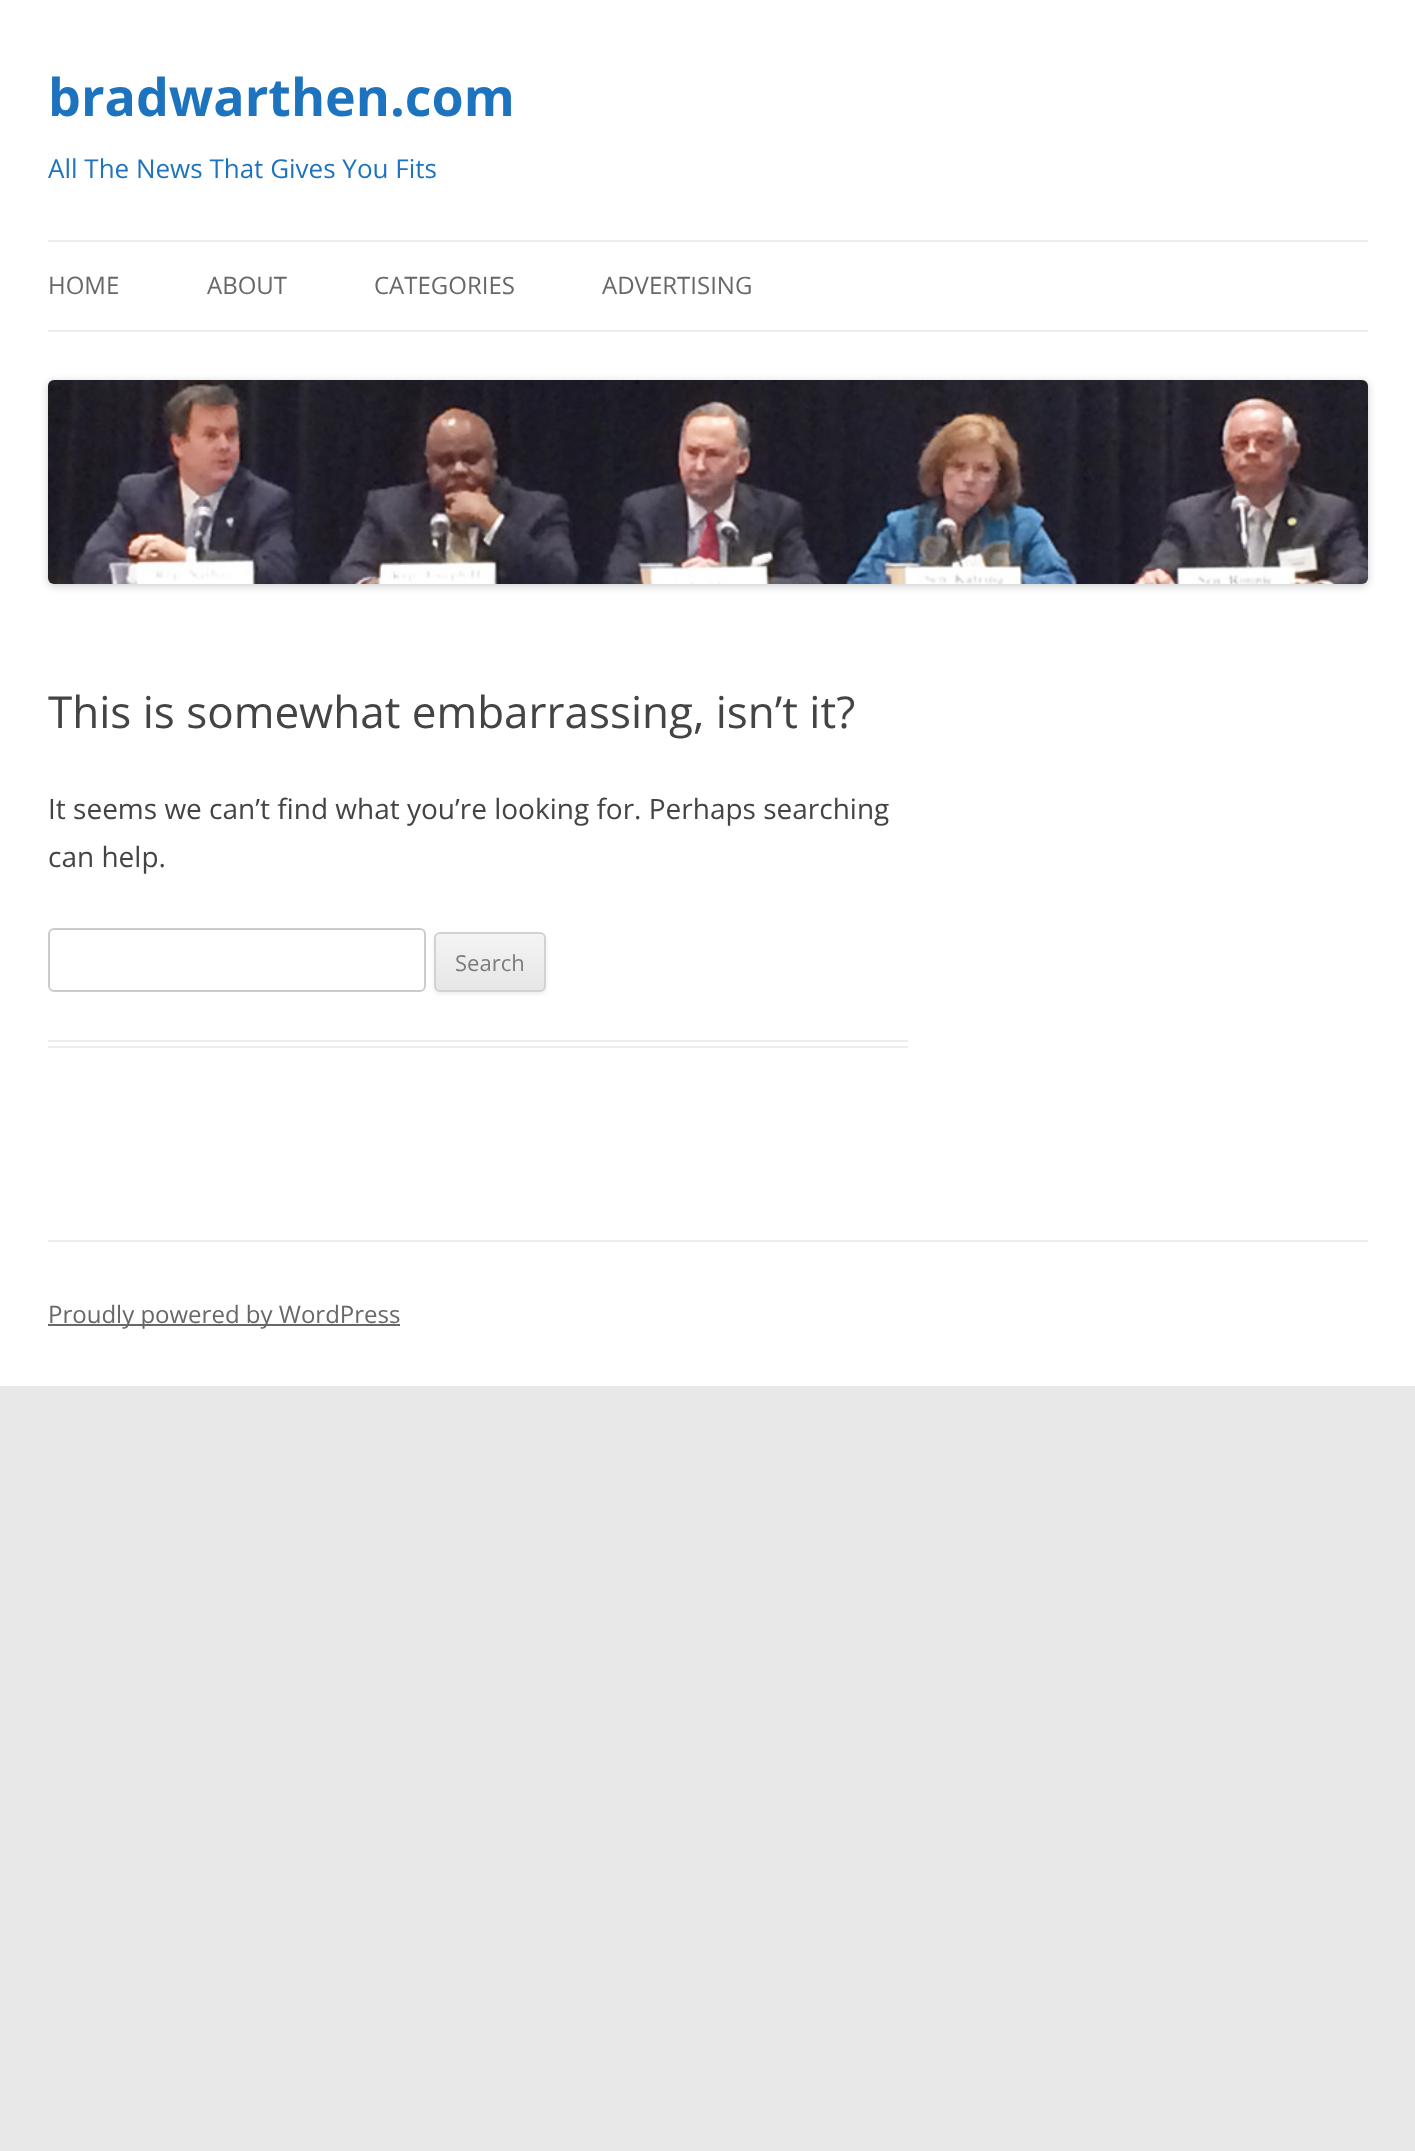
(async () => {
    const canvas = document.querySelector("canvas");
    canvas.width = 1415;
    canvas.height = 2151;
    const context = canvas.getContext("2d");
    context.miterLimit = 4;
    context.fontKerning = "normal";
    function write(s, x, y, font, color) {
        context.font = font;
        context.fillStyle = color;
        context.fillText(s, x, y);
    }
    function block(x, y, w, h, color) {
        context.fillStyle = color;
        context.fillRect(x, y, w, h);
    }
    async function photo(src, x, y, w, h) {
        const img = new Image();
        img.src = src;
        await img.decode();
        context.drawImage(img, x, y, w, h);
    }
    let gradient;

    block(0, 0, 1415, 2151, "rgb(232, 232, 232)");
    block(0, 0, 1415, 1386, "rgb(255, 255, 255)");
    write("bradwarthen.com", 48, 116, "bold 52px Open Sans", "rgb(30, 115, 190)");
    write("All The News That Gives You Fits", 48, 178, "26px Open Sans", "rgb(30, 115, 190)");
    block(48, 240, 1320, 2, "rgb(237, 237, 237)");
    block(48, 330, 1320, 2, "rgb(237, 237, 237)");
    write("HOME", 48, 294, "24px Open Sans", "rgb(104, 104, 104)");
    write("ABOUT", 207, 294, "24px Open Sans", "rgb(104, 104, 104)");
    write("CATEGORIES", 374, 294, "24px Open Sans", "rgb(104, 104, 104)");
    write("ADVERTISING", 602, 294, "24px Open Sans", "rgb(104, 104, 104)");
    context.fillStyle = "rgba(0, 0, 0, 0.2)";
    context.filter = "blur(4px)";
    context.beginPath();
    context.roundRect(48, 382, 1320, 204, 6);
    context.fill();
    context.filter = "none";
    await photo("media/1.png", 48, 380, 1320, 204);
    block(48, 1040, 860, 2, "rgb(237, 237, 237)");
    block(48, 1046, 860, 2, "rgb(237, 237, 237)");
    write("This is somewhat embarrassing, isn’t it?", 48, 728, "44px Open Sans", "rgb(68, 68, 68)");
    write("It seems we can’t find what you’re looking for. Perhaps searching", 48, 819, "28px Open Sans", "rgb(68, 68, 68)");
    write("can help.", 48, 867, "28px Open Sans", "rgb(68, 68, 68)");
    context.beginPath();
    context.roundRect(49, 929, 376, 62, 5);
    context.strokeStyle = "rgb(204, 204, 204)";
    context.lineWidth = 2;
    context.stroke();
    context.fillStyle = "rgba(64, 64, 64, 0.1)";
    context.filter = "blur(2px)";
    context.beginPath();
    context.roundRect(434, 934, 112, 60, 6);
    context.fill();
    context.filter = "none";
    context.save();
    context.beginPath();
    context.roundRect(434, 932, 112, 60, 6);
    context.clip();
    gradient = context.createLinearGradient(490, 934, 490, 990);
    gradient.addColorStop(0, "rgb(244, 244, 244)");
    gradient.addColorStop(1, "rgb(230, 230, 230)");
    context.fillStyle = gradient;
    context.fillRect(434, 934, 112, 56);
    context.restore();
    context.beginPath();
    context.roundRect(435, 933, 110, 58, 5);
    context.strokeStyle = "rgb(210, 210, 210)";
    context.stroke();
    write("Search", 455, 971, "22px Open Sans", "rgb(124, 124, 124)");
    block(48, 1240, 1320, 2, "rgb(237, 237, 237)");
    block(48, 1324, 352, 2, "rgb(104, 104, 104)");
    write("Proudly powered by WordPress", 48, 1323, "24px Open Sans", "rgb(104, 104, 104)");
})();
